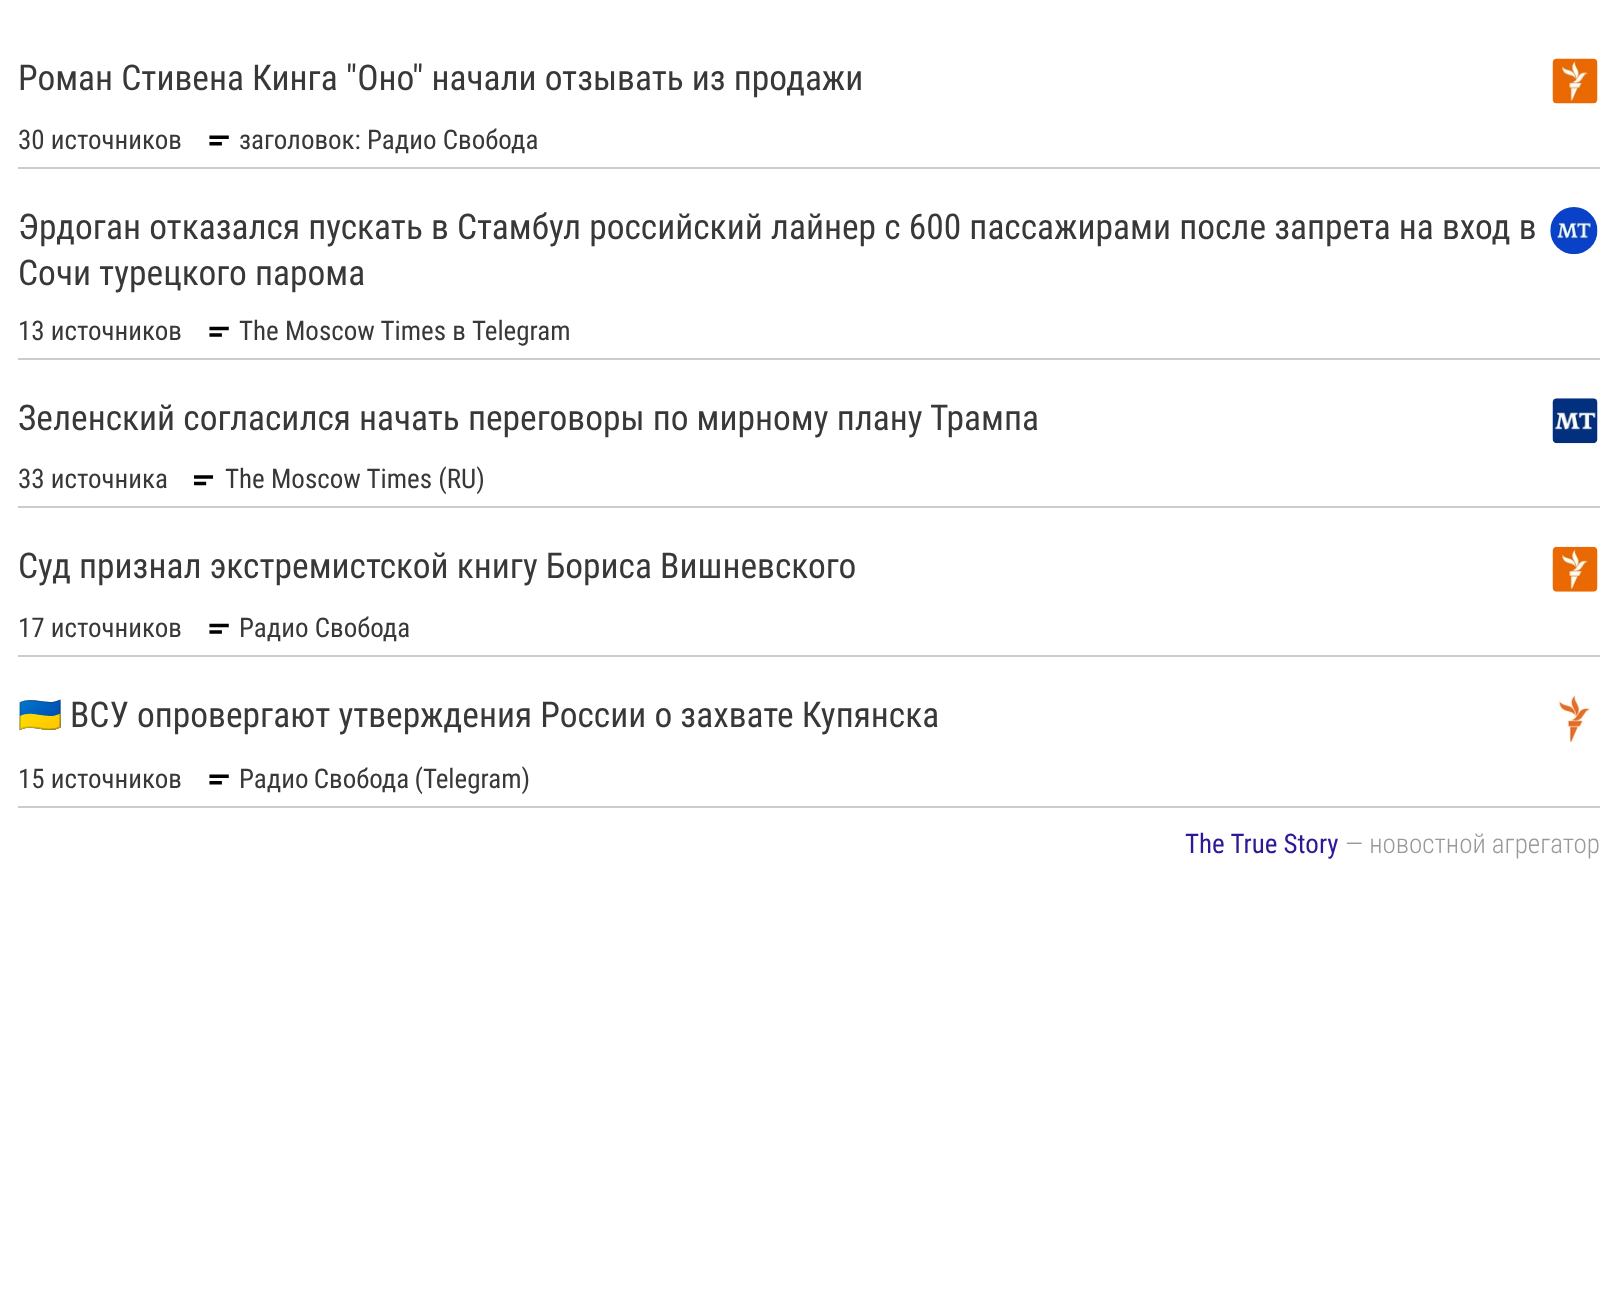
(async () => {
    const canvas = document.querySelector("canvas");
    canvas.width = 1617;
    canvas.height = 1290;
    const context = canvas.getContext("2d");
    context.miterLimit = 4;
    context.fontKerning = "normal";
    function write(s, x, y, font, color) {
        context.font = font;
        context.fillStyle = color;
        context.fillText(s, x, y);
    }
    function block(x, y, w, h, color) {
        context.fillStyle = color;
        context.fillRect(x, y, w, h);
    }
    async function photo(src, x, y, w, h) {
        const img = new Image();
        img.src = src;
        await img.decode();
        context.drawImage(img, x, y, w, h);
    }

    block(0, 0, 1617, 1290, "rgb(255, 255, 255)");
    block(18, 806, 1582, 2, "rgb(204, 204, 204)");
    write("Роман Стивена Кинга \"Оно\" начали отзывать из продажи", 18, 90, "35.45px Roboto Condensed", "rgb(56, 56, 56)");
    await photo("media/1.png", 1552, 58, 46, 46);
    write("30 источников", 18, 149, "27px Roboto Condensed", "rgb(56, 56, 56)");
    await photo("media/2.png", 209, 135, 20, 11);
    write("заголовок: Радио Свобода", 239, 149, "27px Roboto Condensed", "rgb(56, 56, 56)");
    block(18, 167, 1582, 2, "rgb(204, 204, 204)");
    write("Эрдоган отказался пускать в Стамбул российский лайнер с 600 пассажирами после запрета на вход в", 18, 239, "35.45px Roboto Condensed", "rgb(56, 56, 56)");
    write("Сочи турецкого парома", 18, 285, "35.45px Roboto Condensed", "rgb(56, 56, 56)");
    await photo("media/3.png", 1550, 207, 48, 48);
    write("13 источников", 18, 340, "27px Roboto Condensed", "rgb(56, 56, 56)");
    await photo("media/4.png", 209, 326, 20, 11);
    write("The Moscow Times в Telegram", 239, 340, "27px Roboto Condensed", "rgb(56, 56, 56)");
    block(18, 358, 1582, 2, "rgb(204, 204, 204)");
    write("Зеленский согласился начать переговоры по мирному плану Трампа", 18, 430, "35.45px Roboto Condensed", "rgb(56, 56, 56)");
    await photo("media/5.png", 1552, 398, 46, 46);
    write("33 источника", 18, 488, "27px Roboto Condensed", "rgb(56, 56, 56)");
    await photo("media/6.png", 194, 475, 20, 11);
    write("The Moscow Times (RU)", 225, 488, "27px Roboto Condensed", "rgb(56, 56, 56)");
    block(18, 506, 1582, 2, "rgb(204, 204, 204)");
    write("Суд признал экстремистской книгу Бориса Вишневского", 18, 578, "35.45px Roboto Condensed", "rgb(56, 56, 56)");
    await photo("media/7.png", 1552, 546, 46, 46);
    write("17 источников", 18, 637, "27px Roboto Condensed", "rgb(56, 56, 56)");
    await photo("media/4.png", 209, 623, 20, 11);
    write("Радио Свобода", 239, 637, "27px Roboto Condensed", "rgb(56, 56, 56)");
    block(18, 655, 1582, 2, "rgb(204, 204, 204)");
    write("🇺🇦", 18, 727, "35.45px Noto Color Emoji", "rgb(56, 56, 56)");
    write("ВСУ опровергают утверждения России о захвате Купянска", 70, 727, "35.45px Roboto Condensed", "rgb(56, 56, 56)");
    await photo("media/8.png", 1558, 695, 32, 48);
    write("15 источников", 18, 788, "27px Roboto Condensed", "rgb(56, 56, 56)");
    await photo("media/2.png", 209, 774, 20, 11);
    context.wordSpacing = "-1px";
    write("Радио Свобода (Telegram)", 239, 788, "27px Roboto Condensed", "rgb(56, 56, 56)");
    context.wordSpacing = "0px";
    write("The True Story", 1185, 853, "27px Roboto Condensed", "rgb(45, 25, 150)");
    write("— новостной агрегатор", 1345, 853, "300 27px Roboto Condensed", "rgb(153, 153, 153)");
})();
